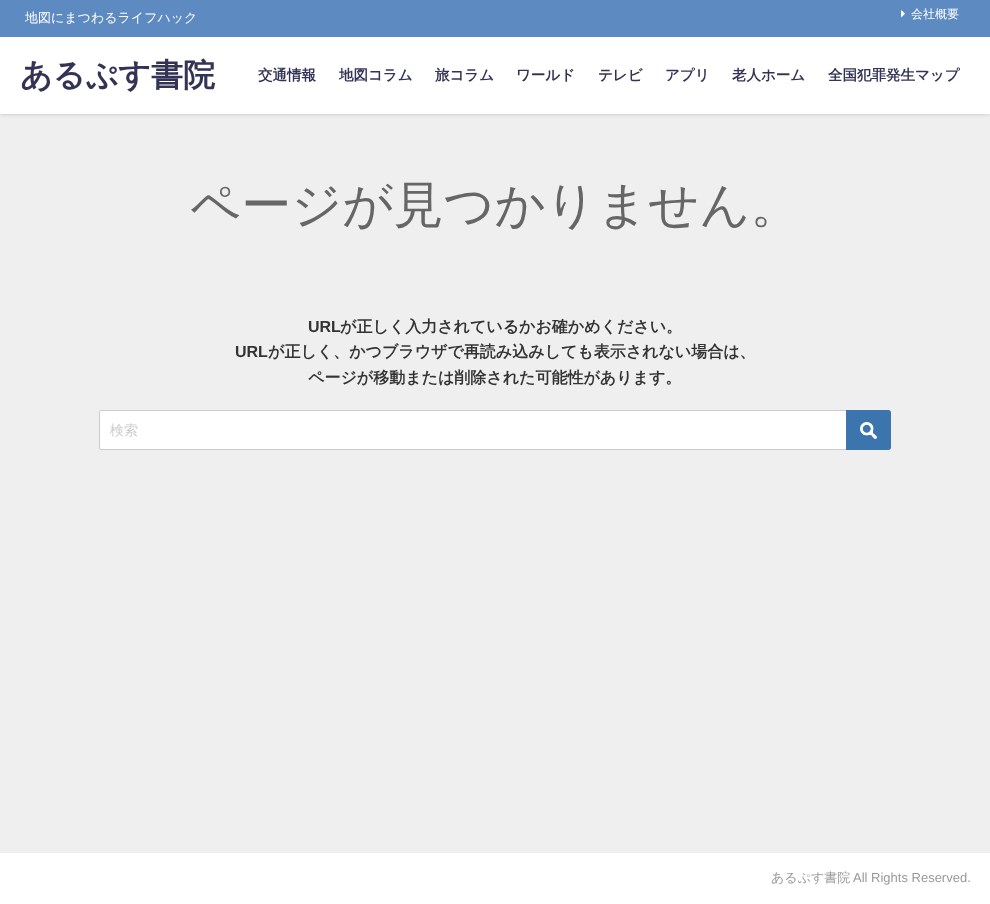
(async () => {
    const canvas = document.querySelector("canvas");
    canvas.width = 990;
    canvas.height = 904;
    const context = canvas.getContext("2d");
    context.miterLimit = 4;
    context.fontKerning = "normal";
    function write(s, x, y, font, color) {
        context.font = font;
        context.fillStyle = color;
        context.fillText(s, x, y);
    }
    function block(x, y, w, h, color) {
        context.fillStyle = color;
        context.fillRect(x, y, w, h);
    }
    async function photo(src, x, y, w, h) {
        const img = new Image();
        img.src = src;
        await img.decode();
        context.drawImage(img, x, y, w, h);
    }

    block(0, 0, 990, 904, "rgb(239, 239, 239)");
    context.fillStyle = "rgba(0, 0, 0, 0.2)";
    context.filter = "blur(2px)";
    context.beginPath();
    context.rect(0, 0, 990, 114);
    context.fill();
    context.filter = "none";
    block(0, 37, 990, 77, "rgb(255, 255, 255)");
    block(0, 0, 990, 37, "rgb(93, 138, 193)");
    write("地図にまつわるライフハック", 25, 22, "500 13px WenQuanYi Zen Hei", "rgb(255, 255, 255)");
    await photo("media/1.png", 901, 10, 4, 8);
    write("会社概要", 911, 18, "500 12px WenQuanYi Zen Hei", "rgb(255, 255, 255)");
    write("あるぷす書院", 20, 86, "bold 32px WenQuanYi Zen Hei", "rgb(51, 51, 85)");
    write("交通情報", 258, 80, "bold 14.5px WenQuanYi Zen Hei", "rgb(51, 51, 85)");
    write("地図コラム", 339, 80, "bold 14.5px WenQuanYi Zen Hei", "rgb(51, 51, 85)");
    write("旅コラム", 435, 80, "bold 14.5px WenQuanYi Zen Hei", "rgb(51, 51, 85)");
    write("ワールド", 516, 80, "bold 14.5px WenQuanYi Zen Hei", "rgb(51, 51, 85)");
    write("テレビ", 598, 80, "bold 14.5px WenQuanYi Zen Hei", "rgb(51, 51, 85)");
    write("アプリ", 665, 80, "bold 14.5px WenQuanYi Zen Hei", "rgb(51, 51, 85)");
    write("老人ホーム", 732, 80, "bold 14.5px WenQuanYi Zen Hei", "rgb(51, 51, 85)");
    write("全国犯罪発生マップ", 828, 80, "bold 14.5px WenQuanYi Zen Hei", "rgb(51, 51, 85)");
    write("ページが見つかりません。", 190, 222, "500 50px WenQuanYi Zen Hei", "rgb(102, 102, 102)");
    write("URL", 308, 332, "bold 16px Liberation Sans", "rgb(51, 51, 51)");
    write("が正しく入力されているかお確かめください。", 340, 332, "bold 16px WenQuanYi Zen Hei", "rgb(51, 51, 51)");
    write("URL", 235, 357, "bold 16px Liberation Sans", "rgb(51, 51, 51)");
    write("が正しく、かつブラウザで再読み込みしても表示されない場合は、", 268, 357, "bold 16px WenQuanYi Zen Hei", "rgb(51, 51, 51)");
    write("ページが移動または削除された可能性があります。", 308, 383, "bold 16px WenQuanYi Zen Hei", "rgb(51, 51, 51)");
    context.fillStyle = "rgb(255, 255, 255)";
    context.beginPath();
    context.roundRect(99.5, 410.5, 791, 39, 1.5);
    context.fill();
    context.strokeStyle = "rgb(204, 204, 204)";
    context.stroke();
    write("検索", 110, 435, "500 14px WenQuanYi Zen Hei", "rgb(204, 204, 204)");
    context.fillStyle = "rgb(60, 116, 173)";
    context.beginPath();
    context.roundRect(846, 410, 45, 40, [0, 3, 3, 0]);
    context.fill();
    await photo("media/2.png", 860, 422, 17, 17);
    block(0, 853, 990, 51, "rgb(255, 255, 255)");
    write("あるぷす書院", 771, 882, "500 13px WenQuanYi Zen Hei", "rgb(153, 153, 153)");
    write("All Rights Reserved.", 853, 882, "13px Liberation Sans", "rgb(153, 153, 153)");
})();
